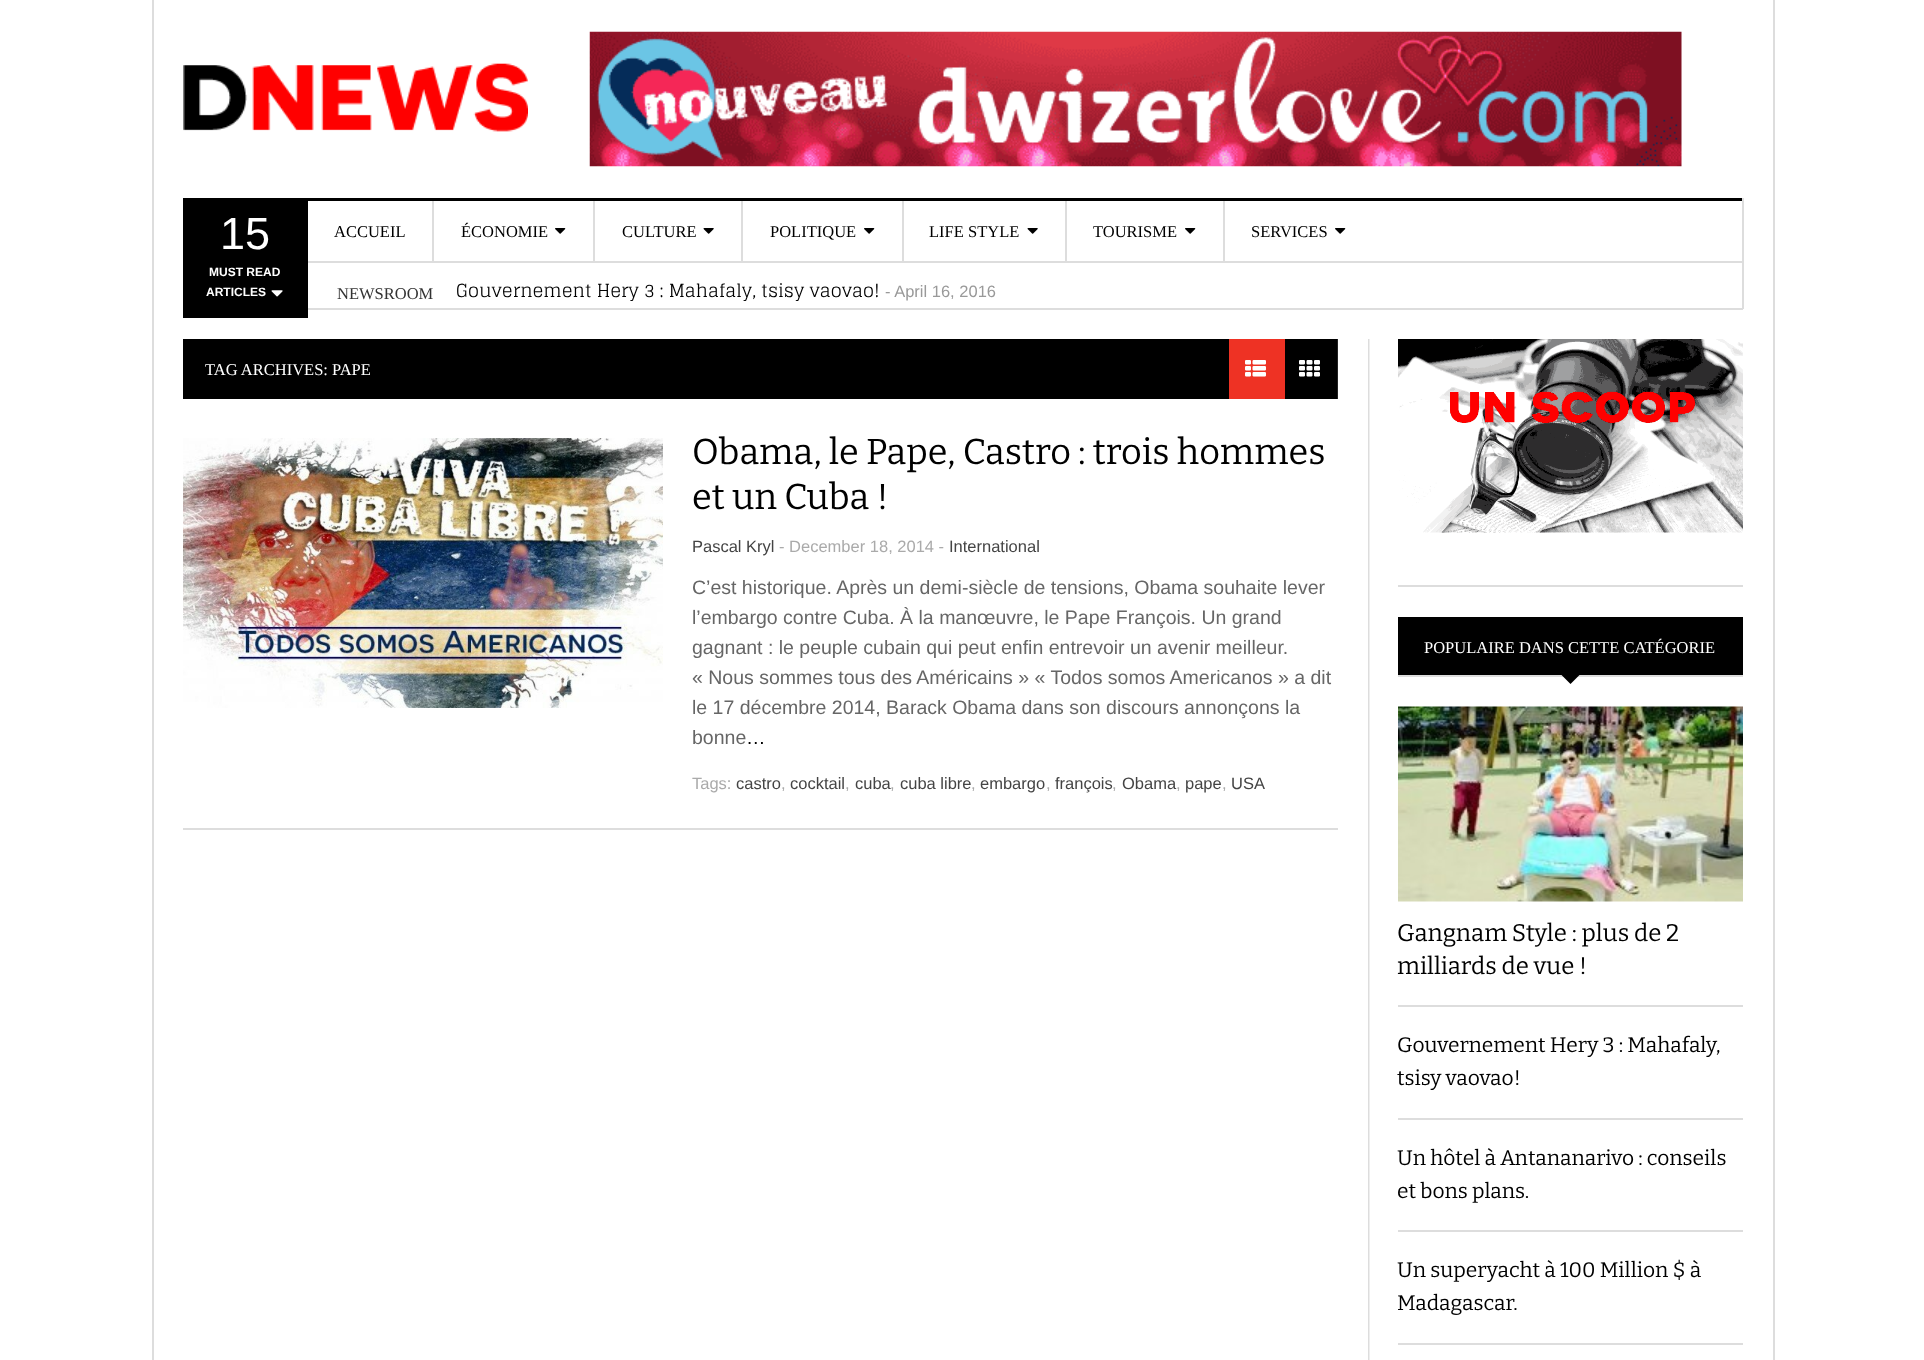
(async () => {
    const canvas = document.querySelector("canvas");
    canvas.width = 1924;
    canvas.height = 1360;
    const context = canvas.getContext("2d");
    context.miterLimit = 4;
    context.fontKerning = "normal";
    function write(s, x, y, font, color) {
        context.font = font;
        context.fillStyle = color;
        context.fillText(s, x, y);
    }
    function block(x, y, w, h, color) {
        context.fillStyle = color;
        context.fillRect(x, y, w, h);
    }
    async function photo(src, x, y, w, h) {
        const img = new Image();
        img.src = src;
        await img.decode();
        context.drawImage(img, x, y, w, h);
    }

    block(0, 0, 1924, 1360, "rgb(255, 255, 255)");
    block(1773, 0, 2, 1360, "rgb(221, 221, 221)");
    block(152, 0, 2, 1360, "rgb(221, 221, 221)");
    await photo("media/1.png", 183, 63, 345, 69);
    await photo("media/2.png", 589, 31, 1093, 136);
    block(183, 198, 125, 120, "rgb(0, 0, 0)");
    write("15", 220, 249, "45px Liberation Sans", "rgb(255, 255, 255)");
    write("MUST READ", 209, 276, "bold 12px Liberation Sans", "rgb(255, 255, 255)");
    write("ARTICLES", 206, 296, "bold 12px Liberation Sans", "rgb(255, 255, 255)");
    await photo("media/3.png", 271, 290, 12, 7);
    block(1742, 198, 2, 111, "rgb(221, 221, 221)");
    block(308, 198, 1434, 3, "rgb(0, 0, 0)");
    block(308, 261, 1434, 2, "rgb(221, 221, 221)");
    write("ACCUEIL", 334, 237, "16.5px Liberation Serif", "rgb(0, 0, 0)");
    block(432, 201, 2, 60, "rgb(221, 221, 221)");
    write("ÉCONOMIE", 461, 237, "16.5px Liberation Serif", "rgb(0, 0, 0)");
    await photo("media/4.png", 555, 228, 11, 6);
    block(593, 201, 2, 60, "rgb(221, 221, 221)");
    write("CULTURE", 622, 237, "16.5px Liberation Serif", "rgb(0, 0, 0)");
    await photo("media/5.png", 703, 228, 11, 6);
    block(741, 201, 2, 60, "rgb(221, 221, 221)");
    write("POLITIQUE", 770, 237, "16.5px Liberation Serif", "rgb(0, 0, 0)");
    await photo("media/4.png", 864, 228, 11, 6);
    block(902, 201, 2, 60, "rgb(221, 221, 221)");
    write("LIFE STYLE", 929, 237, "16.5px Liberation Serif", "rgb(0, 0, 0)");
    await photo("media/5.png", 1027, 228, 11, 6);
    block(1065, 201, 2, 60, "rgb(221, 221, 221)");
    write("TOURISME", 1093, 237, "16.5px Liberation Serif", "rgb(0, 0, 0)");
    await photo("media/4.png", 1185, 228, 11, 6);
    block(1223, 201, 2, 60, "rgb(221, 221, 221)");
    write("SERVICES", 1251, 237, "16.5px Liberation Serif", "rgb(0, 0, 0)");
    await photo("media/4.png", 1335, 228, 11, 6);
    block(308, 308, 1435, 2, "rgb(221, 221, 221)");
    write("NEWSROOM", 337, 299, "16.5px Liberation Serif", "rgb(51, 51, 51)");
    write("Gouvernement Hery 3 : Mahafaly, tsisy vaovao!", 456, 297, "18px Glegoo", "rgb(0, 0, 0)");
    write("- April 16, 2016", 885, 297, "16.5px Liberation Sans", "rgb(153, 153, 153)");
    await photo("media/6.png", 1368, 339, 2, 1021);
    block(183, 339, 1154, 60, "rgb(0, 0, 0)");
    write("TAG ARCHIVES: PAPE", 205, 375, "16.5px Liberation Serif", "rgb(255, 255, 255)");
    block(1229, 339, 56, 60, "rgb(238, 50, 36)");
    await photo("media/7.png", 1245, 360, 21, 17);
    block(1337, 339, 1, 60, "rgb(34, 34, 34)");
    await photo("media/8.png", 1299, 360, 21, 17);
    block(183, 828, 1155, 2, "rgb(221, 221, 221)");
    await photo("media/9.png", 183, 438, 480, 270);
    write("Obama, le Pape, Castro : trois hommes", 692, 464, "36px Bitter", "rgb(0, 0, 0)");
    write("et un Cuba !", 692, 509, "36px Bitter", "rgb(0, 0, 0)");
    write("Pascal Kryl", 692, 552, "16.5px Liberation Sans", "rgb(68, 68, 68)");
    write("- December 18, 2014 -", 779, 552, "16.5px Liberation Sans", "rgb(170, 170, 170)");
    write("International", 949, 552, "16.5px Liberation Sans", "rgb(68, 68, 68)");
    write("C’est historique. Après un demi-siècle de tensions, Obama souhaite lever", 692, 594, "19.5px Liberation Sans", "rgb(102, 102, 102)");
    write("l’embargo contre Cuba. À la manœuvre, le Pape François. Un grand", 692, 624, "19.5px Liberation Sans", "rgb(102, 102, 102)");
    write("gagnant : le peuple cubain qui peut enfin entrevoir un avenir meilleur.", 692, 654, "19.5px Liberation Sans", "rgb(102, 102, 102)");
    write("« Nous sommes tous des Américains » « Todos somos Americanos » a dit", 692, 684, "19.5px Liberation Sans", "rgb(102, 102, 102)");
    write("le 17 décembre 2014, Barack Obama dans son discours annonçons la", 692, 714, "19.5px Liberation Sans", "rgb(102, 102, 102)");
    write("bonne", 692, 744, "19.5px Liberation Sans", "rgb(102, 102, 102)");
    write("…", 746, 744, "19.5px Liberation Sans", "rgb(0, 0, 0)");
    write("Tags:", 692, 789, "16.5px Liberation Sans", "rgb(170, 170, 170)");
    write("castro", 736, 789, "16.5px Liberation Sans", "rgb(68, 68, 68)");
    write(",", 781, 789, "16.5px Liberation Sans", "rgb(170, 170, 170)");
    write("cocktail", 790, 789, "16.5px Liberation Sans", "rgb(68, 68, 68)");
    write(",", 845, 789, "16.5px Liberation Sans", "rgb(170, 170, 170)");
    write("cuba", 855, 789, "16.5px Liberation Sans", "rgb(68, 68, 68)");
    write(",", 890, 789, "16.5px Liberation Sans", "rgb(170, 170, 170)");
    write("cuba libre", 900, 789, "16.5px Liberation Sans", "rgb(68, 68, 68)");
    write(",", 971, 789, "16.5px Liberation Sans", "rgb(170, 170, 170)");
    write("embargo", 980, 789, "16.5px Liberation Sans", "rgb(68, 68, 68)");
    write(",", 1046, 789, "16.5px Liberation Sans", "rgb(170, 170, 170)");
    write("françois", 1055, 789, "16.5px Liberation Sans", "rgb(68, 68, 68)");
    write(",", 1112, 789, "16.5px Liberation Sans", "rgb(170, 170, 170)");
    write("Obama", 1122, 789, "16.5px Liberation Sans", "rgb(68, 68, 68)");
    write(",", 1176, 789, "16.5px Liberation Sans", "rgb(170, 170, 170)");
    write("pape", 1185, 789, "16.5px Liberation Sans", "rgb(68, 68, 68)");
    write(",", 1222, 789, "16.5px Liberation Sans", "rgb(170, 170, 170)");
    write("USA", 1231, 789, "16.5px Liberation Sans", "rgb(68, 68, 68)");
    await photo("media/10.png", 1398, 339, 345, 194);
    block(1398, 585, 345, 2, "rgb(221, 221, 221)");
    block(1398, 617, 345, 58, "rgb(0, 0, 0)");
    block(1398, 675, 345, 2, "rgb(221, 221, 221)");
    write("POPULAIRE DANS CETTE CATÉGORIE", 1424, 653, "16.5px Liberation Serif", "rgb(255, 255, 255)");
    context.fillStyle = "rgb(0, 0, 0)";
    context.beginPath();
    context.moveTo(1561.5, 675);
    context.lineTo(1579.5, 675);
    context.lineTo(1570.5, 684);
    context.closePath();
    context.fill();
    await photo("media/11.png", 1398, 706, 345, 196);
    write("Gangnam Style : plus de 2", 1397, 941, "24px Bitter", "rgb(0, 0, 0)");
    write("milliards de vue !", 1397, 974, "24px Bitter", "rgb(0, 0, 0)");
    block(1398, 1005, 345, 2, "rgb(221, 221, 221)");
    write("Gouvernement Hery 3 : Mahafaly,", 1397, 1052, "21px Bitter", "rgb(0, 0, 0)");
    write("tsisy vaovao!", 1397, 1085, "21px Bitter", "rgb(0, 0, 0)");
    block(1398, 1118, 345, 2, "rgb(221, 221, 221)");
    write("Un hôtel à Antananarivo : conseils", 1397, 1165, "21px Bitter", "rgb(0, 0, 0)");
    write("et bons plans.", 1397, 1198, "21px Bitter", "rgb(0, 0, 0)");
    block(1398, 1230, 345, 2, "rgb(221, 221, 221)");
    write("Un superyacht à 100 Million $ à", 1397, 1277, "21px Bitter", "rgb(0, 0, 0)");
    write("Madagascar.", 1397, 1310, "21px Bitter", "rgb(0, 0, 0)");
    block(1398, 1343, 345, 2, "rgb(221, 221, 221)");
})();
